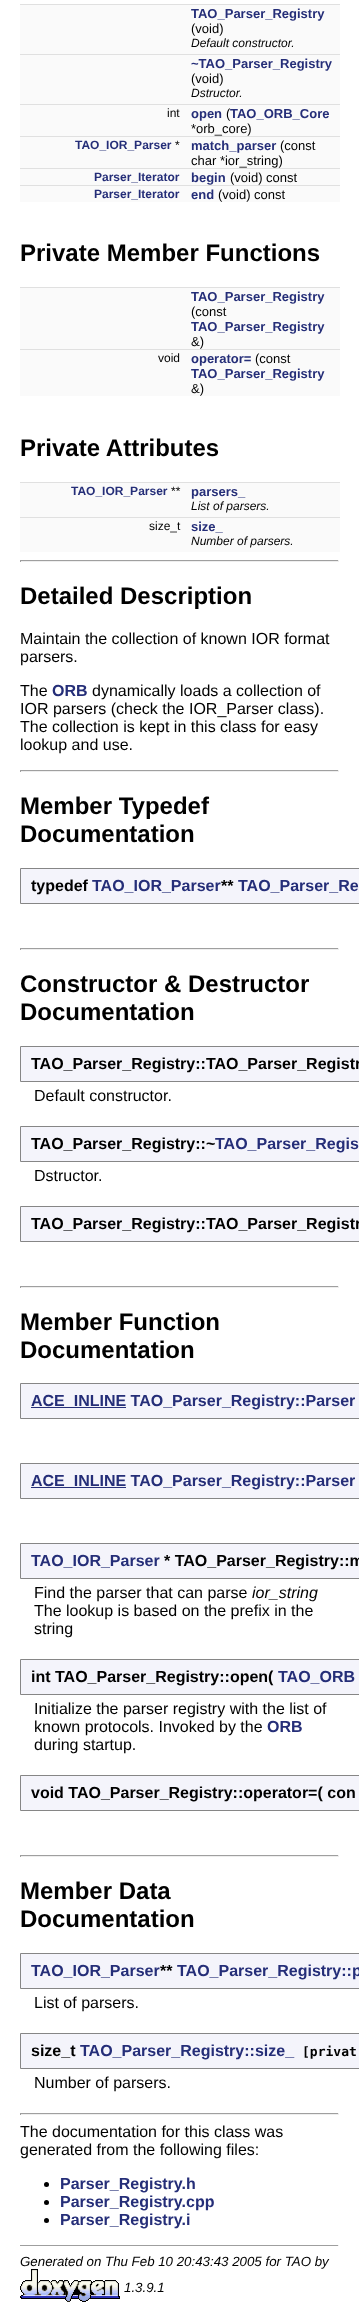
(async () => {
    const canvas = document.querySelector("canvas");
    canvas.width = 359;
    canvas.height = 2322;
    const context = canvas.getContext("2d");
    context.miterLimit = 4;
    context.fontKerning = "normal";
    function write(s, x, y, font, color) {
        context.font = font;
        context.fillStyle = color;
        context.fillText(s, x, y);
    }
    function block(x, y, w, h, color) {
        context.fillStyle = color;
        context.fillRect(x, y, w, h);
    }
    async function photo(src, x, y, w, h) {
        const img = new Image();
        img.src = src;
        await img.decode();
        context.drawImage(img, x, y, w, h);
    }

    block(0, 0, 359, 2322, "rgb(255, 255, 255)");
    block(20, 5, 320, 31, "rgb(250, 250, 250)");
    block(20, 4, 320, 1, "rgb(224, 224, 224)");
    write("TAO_Parser_Registry", 191, 18, "bold 13px Liberation Sans", "rgb(37, 46, 120)");
    write("(void)", 191, 33, "13px Liberation Sans", "rgb(0, 0, 0)");
    block(20, 36, 320, 18, "rgb(250, 250, 250)");
    write("Default constructor.", 191, 47, "italic 12px Liberation Sans", "rgb(0, 0, 0)");
    block(20, 55, 320, 31, "rgb(250, 250, 250)");
    block(20, 54, 320, 1, "rgb(224, 224, 224)");
    write("~TAO_Parser_Registry", 191, 68, "bold 13px Liberation Sans", "rgb(37, 46, 120)");
    write("(void)", 191, 83, "13px Liberation Sans", "rgb(0, 0, 0)");
    block(20, 86, 320, 18, "rgb(250, 250, 250)");
    write("Dstructor.", 191, 97, "italic 12px Liberation Sans", "rgb(0, 0, 0)");
    block(20, 105, 320, 31, "rgb(250, 250, 250)");
    block(20, 104, 320, 1, "rgb(224, 224, 224)");
    write("int", 167, 117, "12px Liberation Sans", "rgb(0, 0, 0)");
    write("open", 191, 118, "bold 13px Liberation Sans", "rgb(37, 46, 120)");
    write("(", 226, 118, "13px Liberation Sans", "rgb(0, 0, 0)");
    write("TAO_ORB_Core", 230, 118, "bold 13px Liberation Sans", "rgb(37, 46, 120)");
    write("*orb_core)", 191, 133, "13px Liberation Sans", "rgb(0, 0, 0)");
    block(20, 137, 320, 31, "rgb(250, 250, 250)");
    block(20, 136, 320, 1, "rgb(224, 224, 224)");
    write("TAO_IOR_Parser", 75, 149, "bold 12px Liberation Sans", "rgb(37, 46, 120)");
    write("*", 175, 149, "12px Liberation Sans", "rgb(0, 0, 0)");
    write("match_parser", 191, 150, "bold 13px Liberation Sans", "rgb(37, 46, 120)");
    write("(const", 280, 150, "13px Liberation Sans", "rgb(0, 0, 0)");
    write("char *ior_string)", 191, 165, "13px Liberation Sans", "rgb(0, 0, 0)");
    block(20, 169, 320, 16, "rgb(250, 250, 250)");
    block(20, 168, 320, 1, "rgb(224, 224, 224)");
    write("Parser_Iterator", 94, 181, "bold 12px Liberation Sans", "rgb(37, 46, 120)");
    write("begin", 191, 182, "bold 13px Liberation Sans", "rgb(37, 46, 120)");
    write("(void) const", 230, 182, "13px Liberation Sans", "rgb(0, 0, 0)");
    block(20, 186, 320, 16, "rgb(250, 250, 250)");
    block(20, 185, 320, 1, "rgb(224, 224, 224)");
    write("Parser_Iterator", 94, 198, "bold 12px Liberation Sans", "rgb(37, 46, 120)");
    write("end", 191, 199, "bold 13px Liberation Sans", "rgb(37, 46, 120)");
    write("(void) const", 218, 199, "13px Liberation Sans", "rgb(0, 0, 0)");
    write("Private Member Functions", 20, 261, "bold 24px Liberation Sans", "rgb(0, 0, 0)");
    block(20, 288, 320, 61, "rgb(250, 250, 250)");
    block(20, 287, 320, 1, "rgb(224, 224, 224)");
    write("TAO_Parser_Registry", 191, 301, "bold 13px Liberation Sans", "rgb(37, 46, 120)");
    write("(const", 191, 316, "13px Liberation Sans", "rgb(0, 0, 0)");
    write("TAO_Parser_Registry", 191, 331, "bold 13px Liberation Sans", "rgb(37, 46, 120)");
    write("&)", 191, 346, "13px Liberation Sans", "rgb(0, 0, 0)");
    block(20, 350, 320, 46, "rgb(250, 250, 250)");
    block(20, 349, 320, 1, "rgb(224, 224, 224)");
    write("void", 158, 362, "12px Liberation Sans", "rgb(0, 0, 0)");
    write("operator=", 191, 363, "bold 13px Liberation Sans", "rgb(37, 46, 120)");
    write("(const", 255, 363, "13px Liberation Sans", "rgb(0, 0, 0)");
    write("TAO_Parser_Registry", 191, 378, "bold 13px Liberation Sans", "rgb(37, 46, 120)");
    write("&)", 191, 393, "13px Liberation Sans", "rgb(0, 0, 0)");
    write("Private Attributes", 20, 456, "bold 24px Liberation Sans", "rgb(0, 0, 0)");
    block(20, 483, 320, 16, "rgb(250, 250, 250)");
    block(20, 482, 320, 1, "rgb(224, 224, 224)");
    write("TAO_IOR_Parser", 71, 495, "bold 12px Liberation Sans", "rgb(37, 46, 120)");
    write("**", 171, 495, "12px Liberation Sans", "rgb(0, 0, 0)");
    write("parsers_", 191, 496, "bold 13px Liberation Sans", "rgb(37, 46, 120)");
    block(20, 499, 320, 18, "rgb(250, 250, 250)");
    write("List of parsers.", 191, 510, "italic 12px Liberation Sans", "rgb(0, 0, 0)");
    block(20, 518, 320, 16, "rgb(250, 250, 250)");
    block(20, 517, 320, 1, "rgb(224, 224, 224)");
    write("size_t", 149, 530, "12px Liberation Sans", "rgb(0, 0, 0)");
    write("size_", 191, 531, "bold 13px Liberation Sans", "rgb(37, 46, 120)");
    block(20, 534, 320, 18, "rgb(250, 250, 250)");
    write("Number of parsers.", 191, 545, "italic 12px Liberation Sans", "rgb(0, 0, 0)");
    block(20, 560, 319, 1, "rgb(159, 159, 159)");
    block(338, 560, 1, 2, "rgb(238, 238, 238)");
    block(20, 561, 319, 1, "rgb(238, 238, 238)");
    block(20, 560, 1, 2, "rgb(159, 159, 159)");
    write("Detailed Description", 20, 604, "bold 24px Liberation Sans", "rgb(0, 0, 0)");
    write("Maintain the collection of known IOR format", 20, 644, "16px Liberation Sans", "rgb(0, 0, 0)");
    write("parsers.", 20, 662, "16px Liberation Sans", "rgb(0, 0, 0)");
    write("The", 20, 696, "16px Liberation Sans", "rgb(0, 0, 0)");
    write("ORB", 52, 696, "bold 16px Liberation Sans", "rgb(37, 46, 120)");
    write("dynamically loads a collection of", 92, 696, "16px Liberation Sans", "rgb(0, 0, 0)");
    write("IOR parsers (check the IOR_Parser class).", 20, 714, "16px Liberation Sans", "rgb(0, 0, 0)");
    write("The collection is kept in this class for easy", 20, 732, "16px Liberation Sans", "rgb(0, 0, 0)");
    write("lookup and use.", 20, 750, "16px Liberation Sans", "rgb(0, 0, 0)");
    block(20, 770, 319, 1, "rgb(159, 159, 159)");
    block(338, 770, 1, 2, "rgb(238, 238, 238)");
    block(20, 771, 319, 1, "rgb(238, 238, 238)");
    block(20, 770, 1, 2, "rgb(159, 159, 159)");
    write("Member Typedef", 20, 814, "bold 24px Liberation Sans", "rgb(0, 0, 0)");
    write("Documentation", 20, 842, "bold 24px Liberation Sans", "rgb(0, 0, 0)");
    context.fillStyle = "rgb(244, 244, 251)";
    context.beginPath();
    context.rect(20.5, 868.5, 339, 35);
    context.fill();
    context.strokeStyle = "rgb(134, 134, 134)";
    context.stroke();
    write("typedef", 31, 891, "bold 16px Liberation Sans", "rgb(0, 0, 0)");
    write("TAO_IOR_Parser", 92, 891, "bold 16px Liberation Sans", "rgb(37, 46, 120)");
    write("**", 221, 891, "bold 16px Liberation Sans", "rgb(0, 0, 0)");
    write("TAO_Parser_Re", 238, 891, "bold 16px Liberation Sans", "rgb(37, 46, 120)");
    block(20, 948, 319, 1, "rgb(159, 159, 159)");
    block(338, 948, 1, 2, "rgb(238, 238, 238)");
    block(20, 949, 319, 1, "rgb(238, 238, 238)");
    block(20, 948, 1, 2, "rgb(159, 159, 159)");
    write("Constructor & Destructor", 20, 992, "bold 24px Liberation Sans", "rgb(0, 0, 0)");
    write("Documentation", 20, 1020, "bold 24px Liberation Sans", "rgb(0, 0, 0)");
    context.fillStyle = "rgb(244, 244, 251)";
    context.beginPath();
    context.rect(20.5, 1046.5, 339, 35);
    context.fill();
    context.stroke();
    write("TAO_Parser_Registry::TAO_Parser_Registr", 31, 1069, "bold 16px Liberation Sans", "rgb(0, 0, 0)");
    write("Default constructor.", 34, 1101, "16px Liberation Sans", "rgb(0, 0, 0)");
    context.fillStyle = "rgb(244, 244, 251)";
    context.beginPath();
    context.rect(20.5, 1126.5, 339, 35);
    context.fill();
    context.stroke();
    write("TAO_Parser_Registry::~", 31, 1149, "bold 16px Liberation Sans", "rgb(0, 0, 0)");
    write("TAO_Parser_Regis", 215, 1149, "bold 16px Liberation Sans", "rgb(37, 46, 120)");
    write("Dstructor.", 34, 1181, "16px Liberation Sans", "rgb(0, 0, 0)");
    context.fillStyle = "rgb(244, 244, 251)";
    context.beginPath();
    context.rect(20.5, 1206.5, 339, 35);
    context.fill();
    context.stroke();
    write("TAO_Parser_Registry::TAO_Parser_Registr", 31, 1229, "bold 16px Liberation Sans", "rgb(0, 0, 0)");
    block(20, 1286, 319, 1, "rgb(159, 159, 159)");
    block(338, 1286, 1, 2, "rgb(238, 238, 238)");
    block(20, 1287, 319, 1, "rgb(238, 238, 238)");
    block(20, 1286, 1, 2, "rgb(159, 159, 159)");
    write("Member Function", 20, 1330, "bold 24px Liberation Sans", "rgb(0, 0, 0)");
    write("Documentation", 20, 1358, "bold 24px Liberation Sans", "rgb(0, 0, 0)");
    context.fillStyle = "rgb(244, 244, 251)";
    context.beginPath();
    context.rect(20.5, 1383.5, 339, 35);
    context.fill();
    context.stroke();
    block(31, 1407, 95, 1, "rgb(37, 46, 120)");
    write("ACE_INLINE TAO_Parser_Registry::Parser", 31, 1406, "bold 16px Liberation Sans", "rgb(37, 46, 120)");
    context.fillStyle = "rgb(244, 244, 251)";
    context.beginPath();
    context.rect(20.5, 1463.5, 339, 35);
    context.fill();
    context.stroke();
    block(31, 1487, 95, 1, "rgb(37, 46, 120)");
    write("ACE_INLINE TAO_Parser_Registry::Parser", 31, 1486, "bold 16px Liberation Sans", "rgb(37, 46, 120)");
    context.fillStyle = "rgb(244, 244, 251)";
    context.beginPath();
    context.rect(20.5, 1543.5, 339, 35);
    context.fill();
    context.stroke();
    write("TAO_IOR_Parser", 31, 1566, "bold 16px Liberation Sans", "rgb(37, 46, 120)");
    write("* TAO_Parser_Registry::m", 164, 1566, "bold 16px Liberation Sans", "rgb(0, 0, 0)");
    write("Find the parser that can parse", 34, 1598, "16px Liberation Sans", "rgb(0, 0, 0)");
    write("ior_string", 252, 1598, "italic 16px Liberation Sans", "rgb(0, 0, 0)");
    write("The lookup is based on the prefix in the", 34, 1616, "16px Liberation Sans", "rgb(0, 0, 0)");
    write("string", 34, 1634, "16px Liberation Sans", "rgb(0, 0, 0)");
    context.fillStyle = "rgb(244, 244, 251)";
    context.beginPath();
    context.rect(20.5, 1659.5, 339, 35);
    context.fill();
    context.stroke();
    write("int TAO_Parser_Registry::open(", 31, 1682, "bold 16px Liberation Sans", "rgb(0, 0, 0)");
    write("TAO_ORB", 278, 1682, "bold 16px Liberation Sans", "rgb(37, 46, 120)");
    write("Initialize the parser registry with the list of", 34, 1714, "16px Liberation Sans", "rgb(0, 0, 0)");
    write("known protocols. Invoked by the", 34, 1732, "16px Liberation Sans", "rgb(0, 0, 0)");
    write("ORB", 267, 1732, "bold 16px Liberation Sans", "rgb(37, 46, 120)");
    write("during startup.", 34, 1750, "16px Liberation Sans", "rgb(0, 0, 0)");
    context.fillStyle = "rgb(244, 244, 251)";
    context.beginPath();
    context.rect(20.5, 1775.5, 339, 35);
    context.fill();
    context.stroke();
    write("void TAO_Parser_Registry::operator=( con", 31, 1798, "bold 16px Liberation Sans", "rgb(0, 0, 0)");
    block(20, 1855, 319, 1, "rgb(159, 159, 159)");
    block(338, 1855, 1, 2, "rgb(238, 238, 238)");
    block(20, 1856, 319, 1, "rgb(238, 238, 238)");
    block(20, 1855, 1, 2, "rgb(159, 159, 159)");
    write("Member Data", 20, 1899, "bold 24px Liberation Sans", "rgb(0, 0, 0)");
    write("Documentation", 20, 1927, "bold 24px Liberation Sans", "rgb(0, 0, 0)");
    context.fillStyle = "rgb(244, 244, 251)";
    context.beginPath();
    context.rect(20.5, 1953.5, 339, 35);
    context.fill();
    context.stroke();
    write("TAO_IOR_Parser", 31, 1976, "bold 16px Liberation Sans", "rgb(37, 46, 120)");
    write("**", 160, 1976, "bold 16px Liberation Sans", "rgb(0, 0, 0)");
    write("TAO_Parser_Registry::p", 177, 1976, "bold 16px Liberation Sans", "rgb(37, 46, 120)");
    write("List of parsers.", 34, 2008, "16px Liberation Sans", "rgb(0, 0, 0)");
    context.fillStyle = "rgb(244, 244, 251)";
    context.beginPath();
    context.rect(20.5, 2033.5, 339, 35);
    context.fill();
    context.stroke();
    write("size_t", 31, 2056, "bold 16px Liberation Sans", "rgb(0, 0, 0)");
    write("TAO_Parser_Registry::size_", 80, 2056, "bold 16px Liberation Sans", "rgb(37, 46, 120)");
    write("[privat", 302, 2056, "bold 13px DejaVu Sans Mono", "rgb(0, 0, 0)");
    write("Number of parsers.", 34, 2088, "16px Liberation Sans", "rgb(0, 0, 0)");
    block(20, 2113, 319, 1, "rgb(159, 159, 159)");
    block(338, 2113, 1, 2, "rgb(238, 238, 238)");
    block(20, 2114, 319, 1, "rgb(238, 238, 238)");
    block(20, 2113, 1, 2, "rgb(159, 159, 159)");
    write("The documentation for this class was", 20, 2137, "16px Liberation Sans", "rgb(0, 0, 0)");
    write("generated from the following files:", 20, 2155, "16px Liberation Sans", "rgb(0, 0, 0)");
    context.beginPath();
    context.arc(46.5, 2184.5, 2.5, 0, Math.PI * 2);
    context.fill();
    write("Parser_Registry.h", 60, 2189, "bold 16px Liberation Sans", "rgb(37, 46, 120)");
    context.fillStyle = "rgb(0, 0, 0)";
    context.beginPath();
    context.arc(46.5, 2202.5, 2.5, 0, Math.PI * 2);
    context.fill();
    write("Parser_Registry.cpp", 60, 2207, "bold 16px Liberation Sans", "rgb(37, 46, 120)");
    context.fillStyle = "rgb(0, 0, 0)";
    context.beginPath();
    context.arc(46.5, 2220.5, 2.5, 0, Math.PI * 2);
    context.fill();
    write("Parser_Registry.i", 60, 2225, "bold 16px Liberation Sans", "rgb(37, 46, 120)");
    block(20, 2245, 319, 1, "rgb(159, 159, 159)");
    block(338, 2245, 1, 1, "rgb(238, 238, 238)");
    write("Generated on Thu Feb 10 20:43:43 2005 for TAO by", 20, 2266, "italic 13.3px Liberation Sans", "rgb(0, 0, 0)");
    await photo("media/1.png", 20, 2269, 100, 33);
    write("1.3.9.1", 124, 2292, "italic 13.3px Liberation Sans", "rgb(0, 0, 0)");
})();
